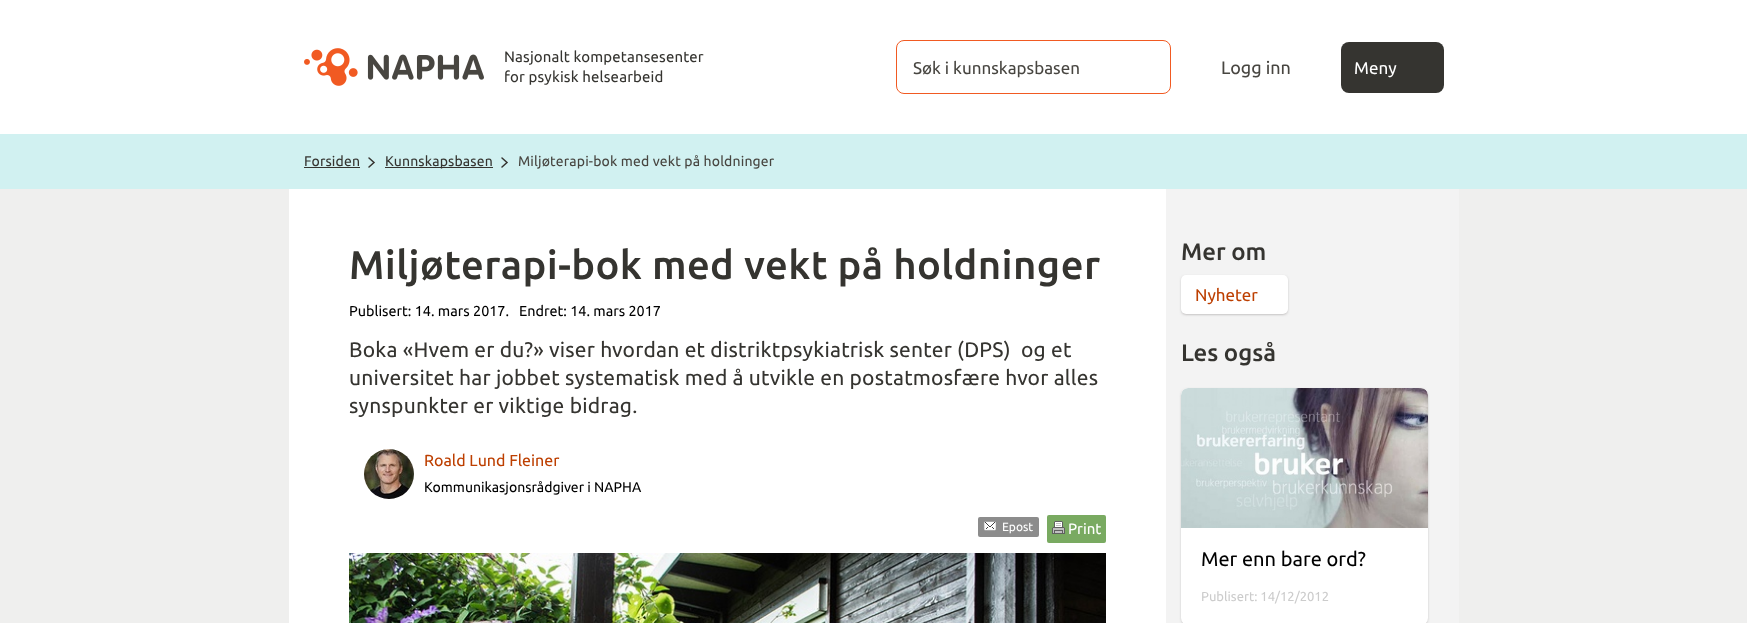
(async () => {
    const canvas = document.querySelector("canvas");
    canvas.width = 1747;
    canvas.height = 623;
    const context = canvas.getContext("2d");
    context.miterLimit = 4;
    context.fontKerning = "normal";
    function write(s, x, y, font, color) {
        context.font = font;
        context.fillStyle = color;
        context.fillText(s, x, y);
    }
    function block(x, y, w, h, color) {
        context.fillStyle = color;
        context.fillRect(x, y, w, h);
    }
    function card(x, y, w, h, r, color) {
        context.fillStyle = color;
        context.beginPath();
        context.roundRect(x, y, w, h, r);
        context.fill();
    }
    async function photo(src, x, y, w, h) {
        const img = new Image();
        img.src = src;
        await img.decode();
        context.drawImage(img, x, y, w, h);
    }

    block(0, 0, 1747, 623, "rgb(239, 239, 238)");
    block(0, 0, 1747, 134, "rgb(255, 255, 255)");
    await photo("media/1.png", 304, 48, 180, 38);
    context.letterSpacing = "0.15px";
    write("Nasjonalt kompetansesenter", 504, 62, "15px Ubuntu", "rgb(53, 52, 48)");
    write("for psykisk helsearbeid", 504, 82, "15px Ubuntu", "rgb(53, 52, 48)");
    context.beginPath();
    context.roundRect(896.5, 40.5, 274, 53, 7.5);
    context.strokeStyle = "rgb(241, 90, 34)";
    context.stroke();
    context.letterSpacing = "0px";
    write("Søk i kunnskapsbasen", 913, 74, "17px Ubuntu", "rgb(72, 70, 65)");
    write("Logg inn", 1221, 74, "18px Ubuntu", "rgb(72, 70, 65)");
    card(1341, 42, 103, 51, 8, "rgb(53, 52, 48)");
    context.letterSpacing = "0.15px";
    write("Meny", 1354, 74, "17px Ubuntu", "rgb(255, 255, 255)");
    block(0, 134, 1747, 55, "rgb(209, 241, 241)");
    write("Forsiden", 304, 166, "14px Ubuntu", "rgb(53, 52, 48)");
    block(304, 167, 56, 1, "rgb(53, 52, 48)");
    context.beginPath();
    context.moveTo(369, 158);
    context.lineTo(374, 162.5);
    context.lineTo(369, 167);
    context.strokeStyle = "rgb(53, 52, 48)";
    context.lineWidth = 1.5;
    context.lineCap = "round";
    context.stroke();
    block(385, 167, 108, 1, "rgb(53, 52, 48)");
    write("Kunnskapsbasen", 385, 166, "14px Ubuntu", "rgb(53, 52, 48)");
    context.beginPath();
    context.moveTo(502, 158);
    context.lineTo(507, 162.5);
    context.lineTo(502, 167);
    context.stroke();
    write("Miljøterapi-bok med vekt på holdninger", 518, 166, "14px Ubuntu", "rgb(72, 70, 65)");
    block(289, 189, 877, 434, "rgb(255, 255, 255)");
    context.letterSpacing = "0.4px";
    write("Miljøterapi-bok med vekt på holdninger", 349, 279, "500 40px Ubuntu", "rgb(53, 52, 48)");
    context.letterSpacing = "0px";
    write("Publisert: 14. mars 2017.   Endret: 14. mars 2017", 349, 316, "14.4px Ubuntu", "rgb(0, 0, 0)");
    context.letterSpacing = "0.22px";
    write("Boka «Hvem er du?» viser hvordan et distriktpsykiatrisk senter (DPS)  og et", 349, 357, "21px Ubuntu", "rgb(53, 52, 48)");
    write("universitet har jobbet systematisk med å utvikle en postatmosfære hvor alles", 349, 385, "21px Ubuntu", "rgb(53, 52, 48)");
    write("synspunkter er viktige bidrag.", 349, 413, "21px Ubuntu", "rgb(53, 52, 48)");
    await photo("media/2.png", 364, 449, 50, 50);
    context.letterSpacing = "0px";
    write("Roald Lund Fleiner", 424, 466, "16px Ubuntu", "rgb(189, 63, 0)");
    write("Kommunikasjonsrådgiver i NAPHA", 424, 492, "14px Ubuntu", "rgb(0, 0, 0)");
    card(978, 517, 61, 20, 2, "rgb(140, 140, 140)");
    await photo("media/3.png", 983, 521, 13, 10);
    write("Epost", 1002, 531, "12px Ubuntu", "rgb(255, 255, 255)");
    card(1047, 515, 59, 28, 2, "rgb(121, 170, 97)");
    await photo("media/4.png", 1052, 521, 13, 13);
    write("Print", 1068, 534, "15px Ubuntu", "rgb(255, 255, 255)");
    await photo("media/5.png", 349, 553, 757, 70);
    block(1166, 189, 293, 434, "rgb(243, 243, 243)");
    write("Mer om", 1181, 260, "500 24px Ubuntu", "rgb(53, 52, 48)");
    context.fillStyle = "rgb(155, 152, 152)";
    context.filter = "blur(1.5px)";
    context.beginPath();
    context.roundRect(1182, 277, 105, 37, 4);
    context.fill();
    context.filter = "none";
    card(1181, 275, 107, 39, 5, "rgb(255, 255, 255)");
    write("Nyheter", 1195, 301, "17px Ubuntu", "rgb(189, 63, 0)");
    write("Les også", 1181, 361, "500 24px Ubuntu", "rgb(53, 52, 48)");
    context.fillStyle = "rgb(155, 152, 152)";
    context.filter = "blur(1.5px)";
    context.beginPath();
    context.roundRect(1182, 390, 245, 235, 6);
    context.fill();
    context.filter = "none";
    card(1181, 388, 247, 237, 7, "rgb(255, 255, 255)");
    await photo("media/6.png", 1181, 388, 247, 140);
    write("Mer enn bare ord?", 1201, 566, "20px Ubuntu", "rgb(0, 0, 0)");
    write("Publisert: 14/12/2012", 1201, 601, "13px Ubuntu", "rgb(204, 204, 204)");
})();
